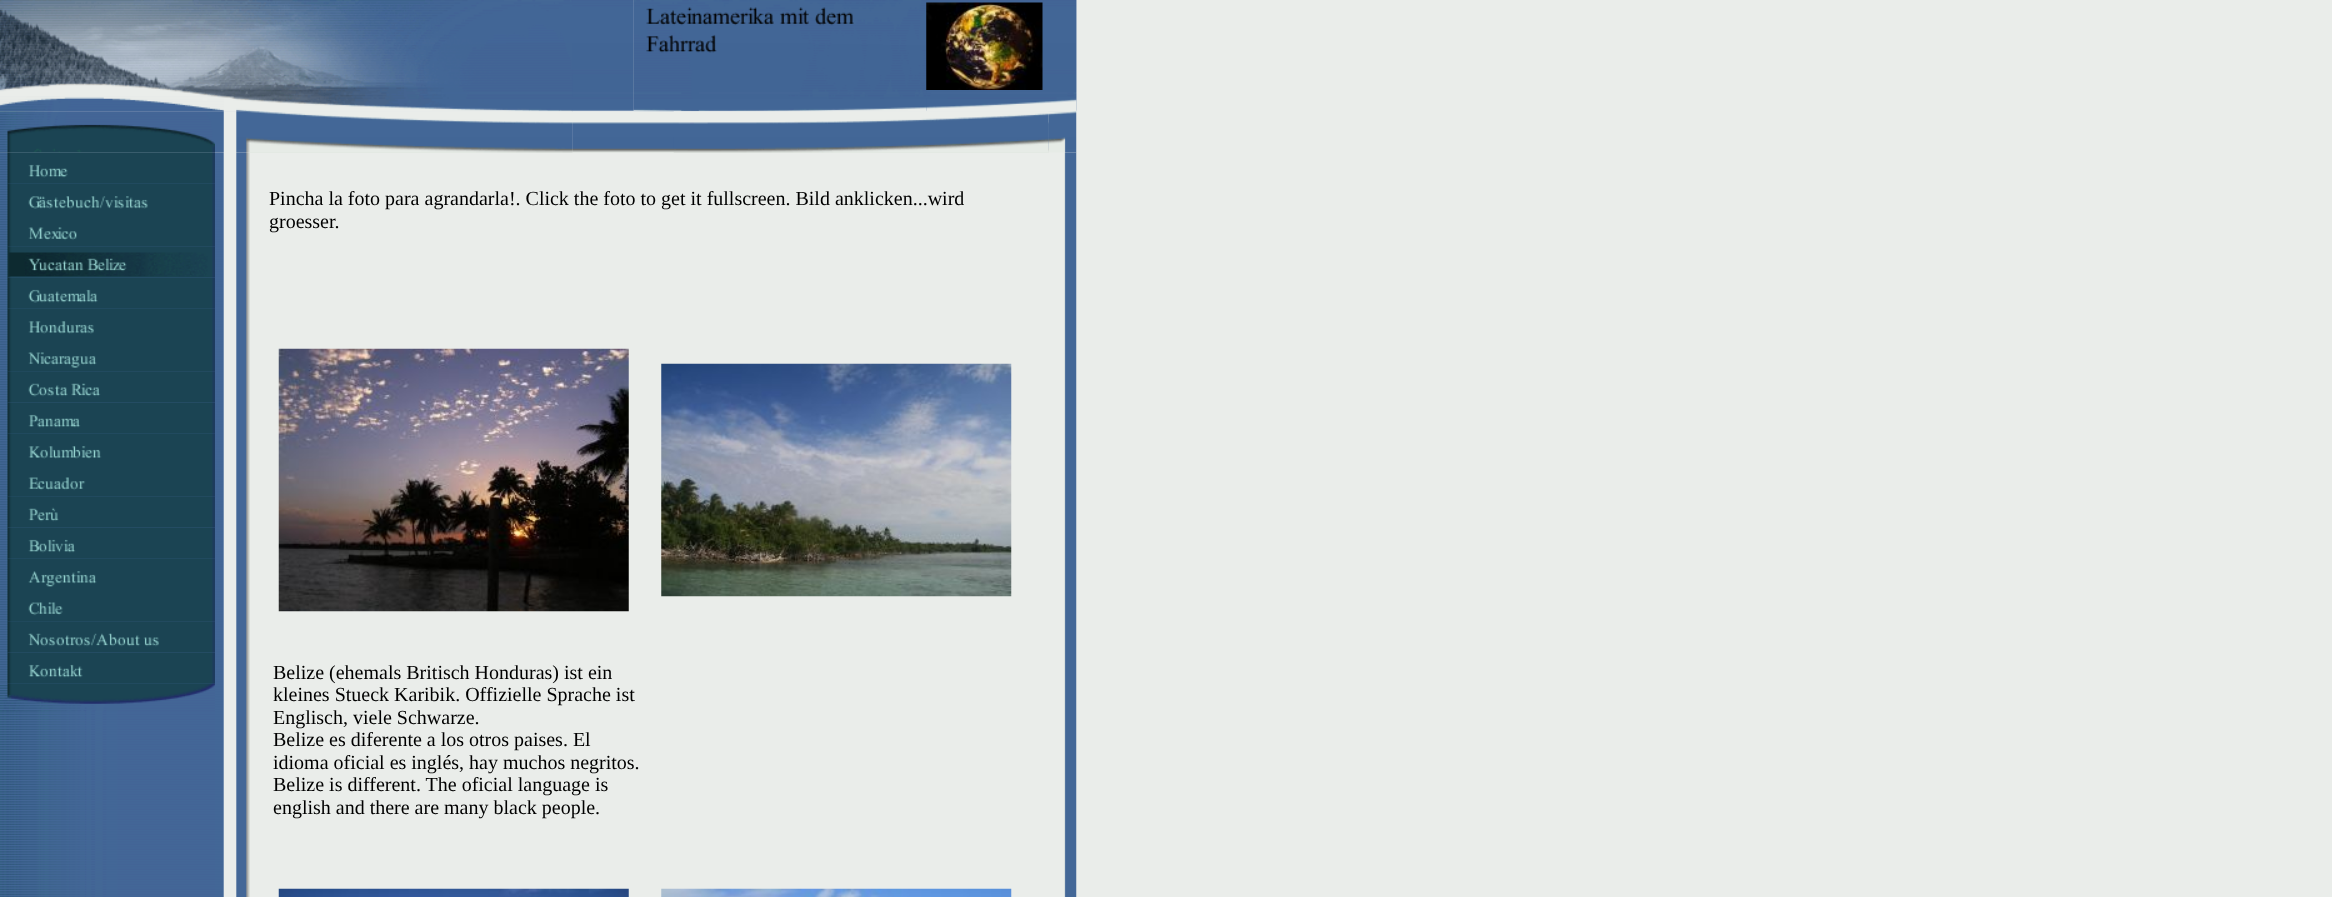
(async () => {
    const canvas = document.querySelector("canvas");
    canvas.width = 2332;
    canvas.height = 897;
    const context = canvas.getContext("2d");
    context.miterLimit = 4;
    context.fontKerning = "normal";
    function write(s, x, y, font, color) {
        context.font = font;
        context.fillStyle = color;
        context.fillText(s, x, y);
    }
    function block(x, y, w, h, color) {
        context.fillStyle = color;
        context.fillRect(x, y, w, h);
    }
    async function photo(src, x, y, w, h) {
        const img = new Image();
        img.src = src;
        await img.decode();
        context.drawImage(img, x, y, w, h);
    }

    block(0, 0, 2332, 897, "rgb(234, 237, 234)");
    await photo("media/1.png", 0, 0, 634, 112);
    await photo("media/10.png", 250, 111, 323, 42);
    await photo("media/3.png", 633, 0, 444, 112);
    await photo("media/12.png", 572, 111, 477, 42);
    await photo("media/2.png", 0, 0, 573, 112);
    await photo("media/4.png", 633, 0, 294, 112);
    await photo("media/5.png", 1076, 0, 1, 93);
    await photo("media/6.png", 926, 2, 117, 88);
    await photo("media/7.png", 926, 92, 151, 20);
    await photo("media/15.png", 0, 152, 215, 745);
    await photo("media/16.png", 0, 152, 8, 531);
    await photo("media/8.png", 0, 111, 215, 42);
    await photo("media/35.png", 215, 152, 35, 745);
    await photo("media/9.png", 215, 111, 35, 42);
    block(250, 152, 798, 1, "rgba(229, 235, 229, 0.5)");
    await photo("media/11.png", 250, 111, 323, 42);
    await photo("media/13.png", 673, 111, 376, 42);
    await photo("media/40.png", 1064, 152, 13, 745);
    await photo("media/14.png", 1048, 111, 29, 42);
    await photo("media/17.png", 7, 152, 208, 32);
    await photo("media/18.png", 7, 183, 208, 32);
    await photo("media/19.png", 7, 215, 208, 32);
    await photo("media/20.png", 7, 246, 208, 32);
    await photo("media/21.png", 7, 277, 208, 32);
    await photo("media/22.png", 7, 308, 208, 32);
    await photo("media/23.png", 7, 340, 208, 32);
    await photo("media/24.png", 7, 371, 208, 32);
    await photo("media/25.png", 7, 402, 208, 32);
    await photo("media/26.png", 7, 433, 208, 32);
    await photo("media/27.png", 7, 465, 208, 32);
    await photo("media/28.png", 7, 496, 208, 32);
    await photo("media/29.png", 7, 527, 208, 32);
    await photo("media/30.png", 7, 558, 208, 32);
    await photo("media/31.png", 7, 590, 208, 32);
    await photo("media/32.png", 7, 621, 208, 32);
    await photo("media/33.png", 7, 652, 208, 32);
    await photo("media/34.png", 0, 683, 215, 28);
    write("Pincha la foto para agrandarla!. Click the foto to get it fullscreen. Bild anklicken...wird", 269, 205, "20px Liberation Serif", "rgb(0, 0, 0)");
    write("groesser.", 269, 228, "20px Liberation Serif", "rgb(0, 0, 0)");
    await photo("media/36.png", 661, 363, 351, 234);
    await photo("media/37.png", 278, 348, 351, 264);
    write("Belize (ehemals Britisch Honduras) ist ein", 273, 679, "20px Liberation Serif", "rgb(0, 0, 0)");
    write("kleines Stueck Karibik. Offizielle Sprache ist", 273, 701, "20px Liberation Serif", "rgb(0, 0, 0)");
    write("Englisch, viele Schwarze.", 273, 724, "20px Liberation Serif", "rgb(0, 0, 0)");
    write("Belize es diferente a los otros paises. El", 273, 746, "20px Liberation Serif", "rgb(0, 0, 0)");
    write("idioma oficial es inglés, hay muchos negritos.", 273, 769, "20px Liberation Serif", "rgb(0, 0, 0)");
    write("Belize is different. The oficial language is", 273, 791, "20px Liberation Serif", "rgb(0, 0, 0)");
    write("english and there are many black people.", 273, 814, "20px Liberation Serif", "rgb(0, 0, 0)");
    await photo("media/38.png", 278, 888, 351, 9);
    await photo("media/39.png", 661, 888, 351, 9);
})();
